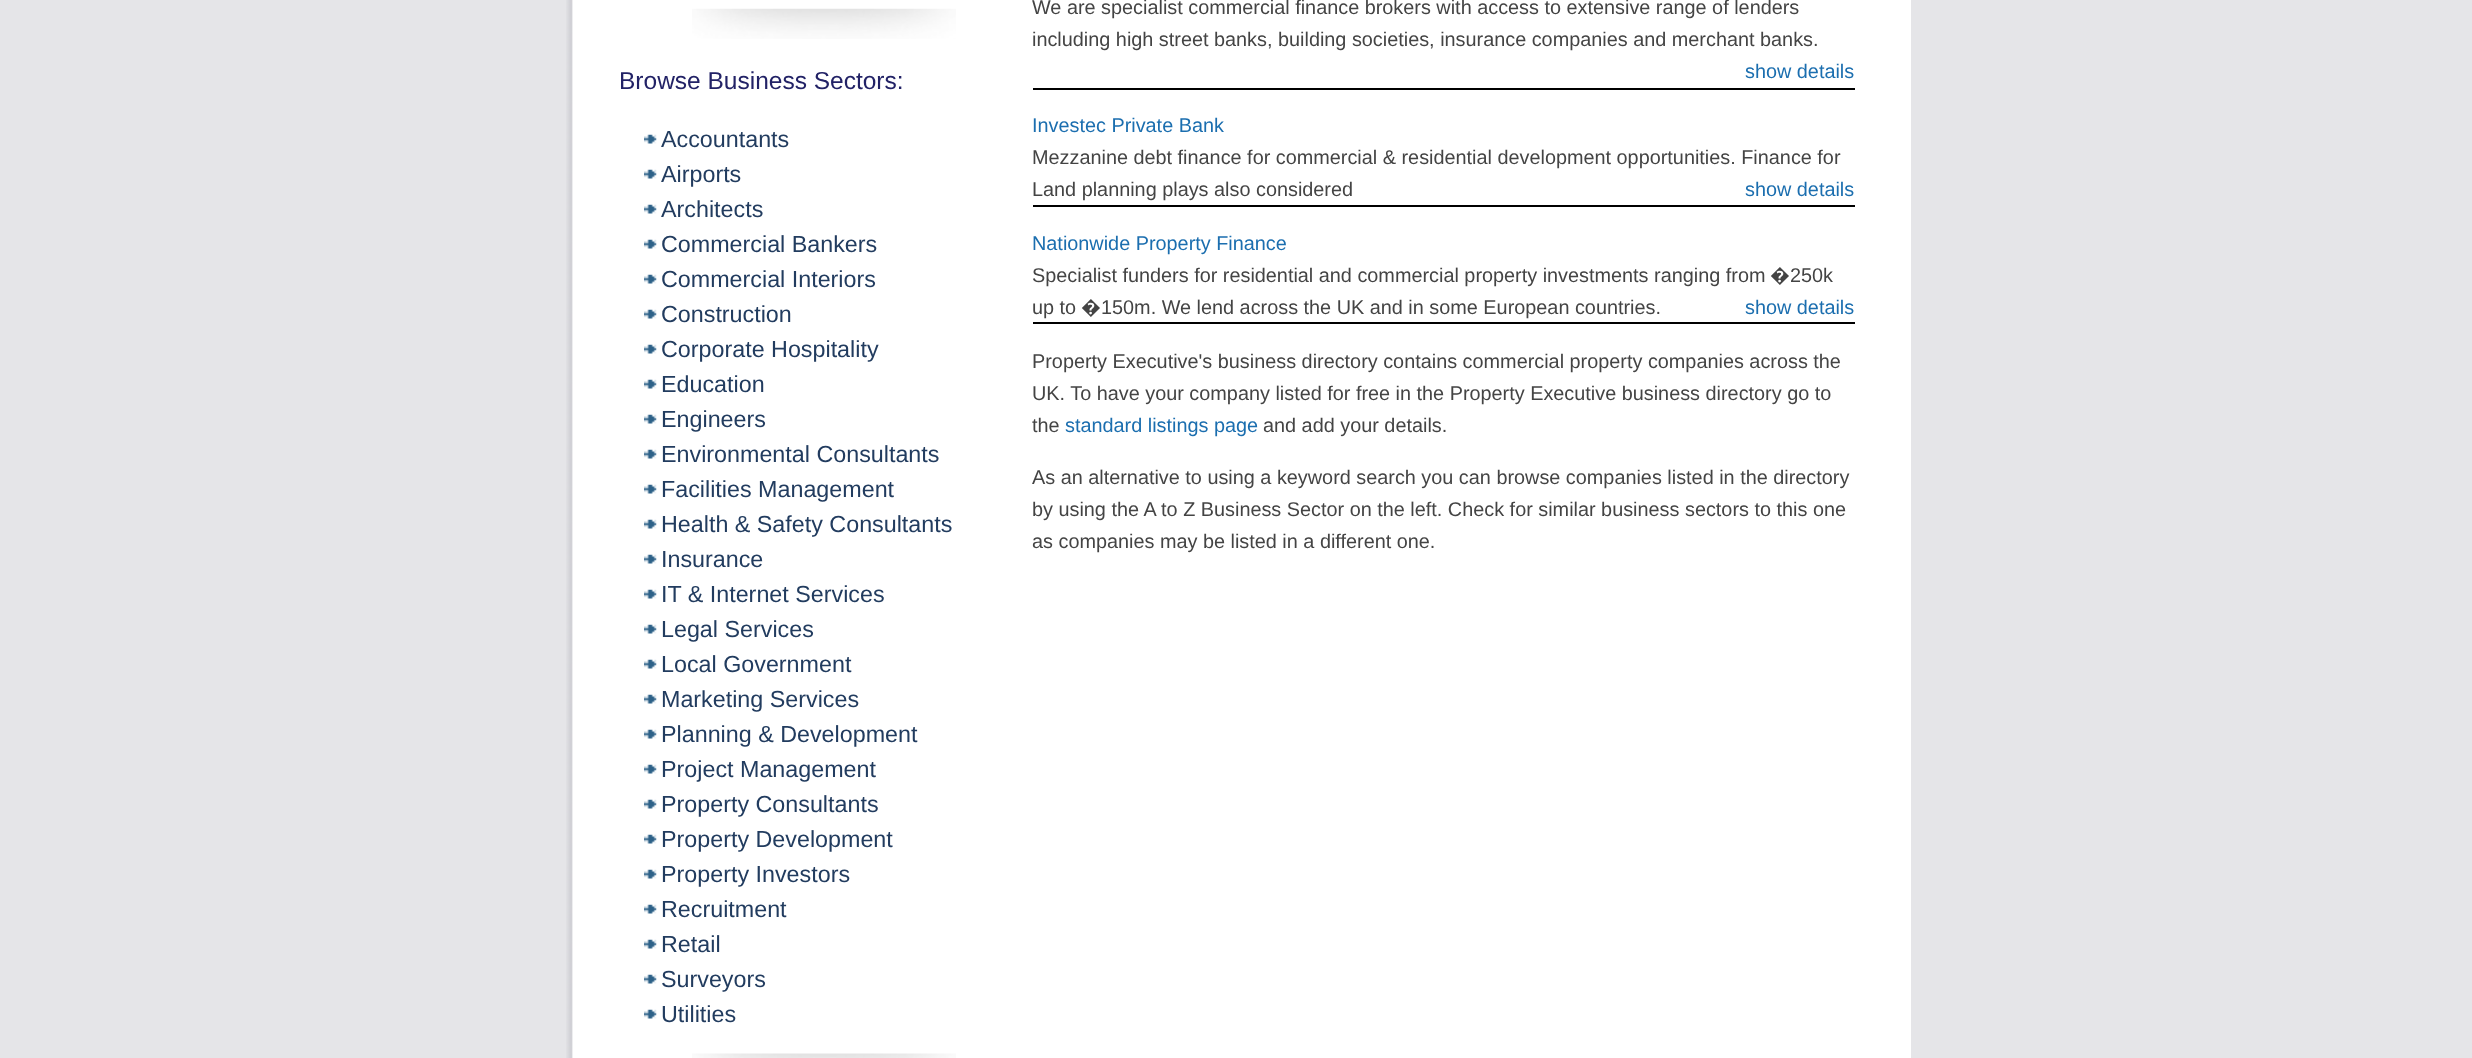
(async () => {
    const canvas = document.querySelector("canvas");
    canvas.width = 2472;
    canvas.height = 1058;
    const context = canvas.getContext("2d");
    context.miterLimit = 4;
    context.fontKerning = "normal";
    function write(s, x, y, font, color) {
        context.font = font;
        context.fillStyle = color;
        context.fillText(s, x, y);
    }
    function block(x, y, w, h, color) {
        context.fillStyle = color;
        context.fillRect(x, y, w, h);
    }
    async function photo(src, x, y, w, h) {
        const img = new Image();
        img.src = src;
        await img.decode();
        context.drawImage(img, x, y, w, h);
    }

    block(0, 0, 2472, 1058, "rgb(229, 229, 232)");
    await photo("media/1.png", 566, 0, 1345, 1058);
    await photo("media/2.png", 692, 8, 264, 31);
    write("Browse Business Sectors:", 619, 89, "24.5px Liberation Sans", "rgb(34, 34, 102)");
    await photo("media/3.png", 644, 134, 13, 10);
    write("Accountants", 661, 147, "23.3px Liberation Sans", "rgb(34, 60, 95)");
    await photo("media/3.png", 644, 169, 13, 10);
    write("Airports", 661, 182, "23.3px Liberation Sans", "rgb(34, 60, 95)");
    await photo("media/3.png", 644, 204, 13, 10);
    write("Architects", 661, 217, "23.3px Liberation Sans", "rgb(34, 60, 95)");
    await photo("media/3.png", 644, 239, 13, 10);
    write("Commercial Bankers", 661, 252, "23.3px Liberation Sans", "rgb(34, 60, 95)");
    await photo("media/3.png", 644, 274, 13, 10);
    write("Commercial Interiors", 661, 287, "23.3px Liberation Sans", "rgb(34, 60, 95)");
    await photo("media/3.png", 644, 309, 13, 10);
    write("Construction", 661, 322, "23.3px Liberation Sans", "rgb(34, 60, 95)");
    await photo("media/3.png", 644, 344, 13, 10);
    write("Corporate Hospitality", 661, 357, "23.3px Liberation Sans", "rgb(34, 60, 95)");
    await photo("media/3.png", 644, 379, 13, 10);
    write("Education", 661, 392, "23.3px Liberation Sans", "rgb(34, 60, 95)");
    await photo("media/3.png", 644, 414, 13, 10);
    write("Engineers", 661, 427, "23.3px Liberation Sans", "rgb(34, 60, 95)");
    await photo("media/3.png", 644, 449, 13, 10);
    write("Environmental Consultants", 661, 462, "23.3px Liberation Sans", "rgb(34, 60, 95)");
    await photo("media/3.png", 644, 484, 13, 10);
    write("Facilities Management", 661, 497, "23.3px Liberation Sans", "rgb(34, 60, 95)");
    await photo("media/3.png", 644, 519, 13, 10);
    write("Health & Safety Consultants", 661, 532, "23.3px Liberation Sans", "rgb(34, 60, 95)");
    await photo("media/3.png", 644, 554, 13, 10);
    write("Insurance", 661, 567, "23.3px Liberation Sans", "rgb(34, 60, 95)");
    await photo("media/3.png", 644, 589, 13, 10);
    write("IT & Internet Services", 661, 602, "23.3px Liberation Sans", "rgb(34, 60, 95)");
    await photo("media/3.png", 644, 624, 13, 10);
    write("Legal Services", 661, 637, "23.3px Liberation Sans", "rgb(34, 60, 95)");
    await photo("media/3.png", 644, 659, 13, 10);
    write("Local Government", 661, 672, "23.3px Liberation Sans", "rgb(34, 60, 95)");
    await photo("media/3.png", 644, 694, 13, 10);
    write("Marketing Services", 661, 707, "23.3px Liberation Sans", "rgb(34, 60, 95)");
    await photo("media/3.png", 644, 729, 13, 10);
    write("Planning & Development", 661, 742, "23.3px Liberation Sans", "rgb(34, 60, 95)");
    await photo("media/3.png", 644, 764, 13, 10);
    write("Project Management", 661, 777, "23.3px Liberation Sans", "rgb(34, 60, 95)");
    await photo("media/3.png", 644, 799, 13, 10);
    write("Property Consultants", 661, 812, "23.3px Liberation Sans", "rgb(34, 60, 95)");
    await photo("media/3.png", 644, 834, 13, 10);
    write("Property Development", 661, 847, "23.3px Liberation Sans", "rgb(34, 60, 95)");
    await photo("media/3.png", 644, 869, 13, 10);
    write("Property Investors", 661, 882, "23.3px Liberation Sans", "rgb(34, 60, 95)");
    await photo("media/3.png", 644, 904, 13, 10);
    write("Recruitment", 661, 917, "23.3px Liberation Sans", "rgb(34, 60, 95)");
    await photo("media/3.png", 644, 939, 13, 10);
    write("Retail", 661, 952, "23.3px Liberation Sans", "rgb(34, 60, 95)");
    await photo("media/3.png", 644, 974, 13, 10);
    write("Surveyors", 661, 987, "23.3px Liberation Sans", "rgb(34, 60, 95)");
    await photo("media/3.png", 644, 1009, 13, 10);
    write("Utilities", 661, 1022, "23.3px Liberation Sans", "rgb(34, 60, 95)");
    await photo("media/4.png", 692, 1053, 264, 5);
    write("We are specialist commercial finance brokers with access to extensive range of lenders", 1032, 14, "19.85px Liberation Sans", "rgb(68, 68, 68)");
    write("including high street banks, building societies, insurance companies and merchant banks.", 1032, 46, "19.85px Liberation Sans", "rgb(68, 68, 68)");
    write("show details", 1745, 78, "19.85px Liberation Sans", "rgb(27, 110, 175)");
    block(1033, 88, 822, 2, "rgb(0, 0, 0)");
    write("Investec Private Bank", 1032, 132, "19.85px Liberation Sans", "rgb(27, 110, 175)");
    write("Mezzanine debt finance for commercial & residential development opportunities. Finance for", 1032, 164, "19.85px Liberation Sans", "rgb(68, 68, 68)");
    write("Land planning plays also considered", 1032, 196, "19.85px Liberation Sans", "rgb(68, 68, 68)");
    write("show details", 1745, 196, "19.85px Liberation Sans", "rgb(27, 110, 175)");
    block(1033, 205, 822, 2, "rgb(0, 0, 0)");
    write("Nationwide Property Finance", 1032, 250, "19.85px Liberation Sans", "rgb(27, 110, 175)");
    write("Specialist funders for residential and commercial property investments ranging from", 1032, 282, "19.85px Liberation Sans", "rgb(68, 68, 68)");
    write("�", 1770, 282, "19.85px Noto Sans", "rgb(68, 68, 68)");
    write("250k", 1790, 282, "19.85px Liberation Sans", "rgb(68, 68, 68)");
    write("up to", 1032, 314, "19.85px Liberation Sans", "rgb(68, 68, 68)");
    write("�", 1081, 314, "19.85px Noto Sans", "rgb(68, 68, 68)");
    write("150m. We lend across the UK and in some European countries.", 1101, 314, "19.85px Liberation Sans", "rgb(68, 68, 68)");
    write("show details", 1745, 314, "19.85px Liberation Sans", "rgb(27, 110, 175)");
    block(1033, 322, 822, 2, "rgb(0, 0, 0)");
    write("Property Executive's business directory contains commercial property companies across the", 1032, 368, "19.85px Liberation Sans", "rgb(68, 68, 68)");
    write("UK. To have your company listed for free in the Property Executive business directory go to", 1032, 400, "19.85px Liberation Sans", "rgb(68, 68, 68)");
    write("the", 1032, 432, "19.85px Liberation Sans", "rgb(68, 68, 68)");
    write("standard listings page", 1065, 432, "19.85px Liberation Sans", "rgb(27, 110, 175)");
    write("and add your details.", 1263, 432, "19.85px Liberation Sans", "rgb(68, 68, 68)");
    write("As an alternative to using a keyword search you can browse companies listed in the directory", 1032, 484, "19.85px Liberation Sans", "rgb(68, 68, 68)");
    write("by using the A to Z Business Sector on the left. Check for similar business sectors to this one", 1032, 516, "19.85px Liberation Sans", "rgb(68, 68, 68)");
    write("as companies may be listed in a different one.", 1032, 548, "19.85px Liberation Sans", "rgb(68, 68, 68)");
})();
